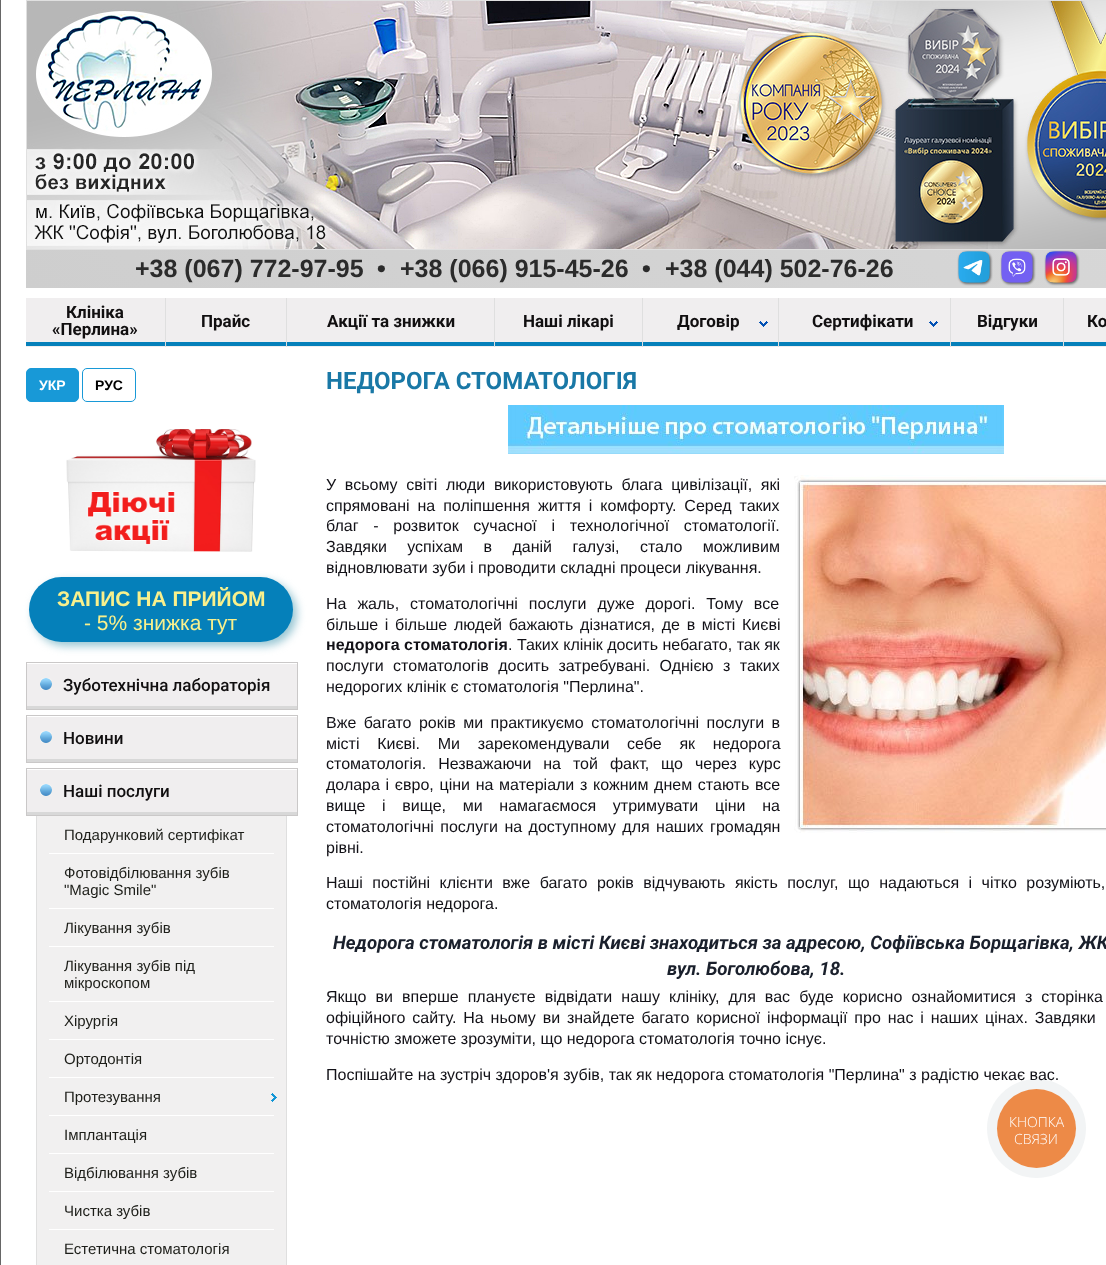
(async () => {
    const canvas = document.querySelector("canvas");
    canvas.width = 1106;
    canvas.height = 1265;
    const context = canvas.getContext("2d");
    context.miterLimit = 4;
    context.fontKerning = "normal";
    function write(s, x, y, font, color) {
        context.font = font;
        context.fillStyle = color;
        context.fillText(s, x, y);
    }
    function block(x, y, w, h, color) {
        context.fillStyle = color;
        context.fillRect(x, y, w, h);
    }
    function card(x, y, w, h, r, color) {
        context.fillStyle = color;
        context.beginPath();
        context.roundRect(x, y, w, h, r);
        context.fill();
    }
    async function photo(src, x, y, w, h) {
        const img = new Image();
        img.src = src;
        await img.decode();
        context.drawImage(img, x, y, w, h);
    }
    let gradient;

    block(0, 0, 1106, 1265, "rgb(255, 255, 255)");
    block(0, 0, 1, 1265, "rgb(102, 102, 102)");
    await photo("media/1.png", 26, 0, 1080, 250);
    gradient = context.createLinearGradient(306, 568, 906, -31);
    gradient.addColorStop(0, "rgb(206, 206, 206)");
    gradient.addColorStop(1, "rgb(215, 215, 215)");
    context.fillStyle = gradient;
    context.fillRect(26, 250, 1080, 38);
    context.fillStyle = "rgba(0, 0, 0, 0.5)";
    context.filter = "blur(1px)";
    context.beginPath();
    context.roundRect(959, 252, 32, 32, 8);
    context.fill();
    context.filter = "none";
    context.filter = "blur(1px)";
    context.beginPath();
    context.roundRect(1002, 252, 32, 32, 8);
    context.fill();
    context.filter = "none";
    context.filter = "blur(1px)";
    context.beginPath();
    context.roundRect(1046, 252, 32, 32, 8);
    context.fill();
    context.filter = "none";
    write("+38 (067) 772-97-95", 135, 277, "bold 25px Liberation Sans", "rgb(43, 43, 43)");
    write("•", 377, 277, "bold 25px Liberation Sans", "rgb(43, 43, 43)");
    write("+38 (066) 915-45-26", 400, 277, "bold 25px Liberation Sans", "rgb(43, 43, 43)");
    write("•", 642, 277, "bold 25px Liberation Sans", "rgb(43, 43, 43)");
    write("+38 (044) 502-76-26", 665, 277, "bold 25px Liberation Sans", "rgb(43, 43, 43)");
    await photo("media/2.png", 958, 251, 32, 32);
    await photo("media/3.png", 1001, 251, 32, 32);
    await photo("media/4.png", 1045, 251, 32, 32);
    block(26, 298, 139, 49, "rgb(240, 238, 239)");
    block(26, 342, 140, 4, "rgb(5, 128, 186)");
    block(165, 298, 1, 49, "rgb(223, 223, 223)");
    write("Клініка", 66, 318, "bold 17px Roboto", "rgb(17, 15, 16)");
    write("«Перлина»", 52, 335, "bold 17px Roboto", "rgb(17, 15, 16)");
    block(166, 298, 120, 49, "rgb(240, 238, 239)");
    block(166, 342, 121, 4, "rgb(5, 128, 186)");
    block(286, 298, 1, 49, "rgb(223, 223, 223)");
    write("Прайс", 201, 327, "bold 17px Roboto", "rgb(17, 15, 16)");
    block(287, 298, 207, 49, "rgb(240, 238, 239)");
    block(287, 342, 208, 4, "rgb(5, 128, 186)");
    block(494, 298, 1, 49, "rgb(223, 223, 223)");
    write("Акції та знижки", 327, 327, "bold 17px Roboto", "rgb(17, 15, 16)");
    block(495, 298, 147, 49, "rgb(240, 238, 239)");
    block(495, 342, 148, 4, "rgb(5, 128, 186)");
    block(642, 298, 1, 49, "rgb(223, 223, 223)");
    write("Наші лікарі", 523, 327, "bold 17px Roboto", "rgb(17, 15, 16)");
    block(643, 298, 135, 49, "rgb(240, 238, 239)");
    await photo("media/5.png", 643, 321, 135, 25);
    block(778, 298, 1, 49, "rgb(223, 223, 223)");
    write("Договір", 677, 327, "bold 17px Roboto", "rgb(17, 15, 16)");
    block(779, 298, 171, 49, "rgb(240, 238, 239)");
    await photo("media/6.png", 779, 321, 171, 25);
    block(950, 298, 1, 49, "rgb(223, 223, 223)");
    write("Сертифікати", 812, 327, "bold 17px Roboto", "rgb(17, 15, 16)");
    block(951, 298, 112, 49, "rgb(240, 238, 239)");
    block(951, 342, 113, 4, "rgb(5, 128, 186)");
    block(1063, 298, 1, 49, "rgb(223, 223, 223)");
    write("Відгуки", 977, 327, "bold 17px Roboto", "rgb(17, 15, 16)");
    block(1064, 298, 42, 49, "rgb(240, 238, 239)");
    block(1064, 342, 42, 4, "rgb(5, 128, 186)");
    write("Ко", 1087, 327, "bold 17px Roboto", "rgb(17, 15, 16)");
    context.fillStyle = "rgb(24, 153, 215)";
    context.beginPath();
    context.roundRect(26.5, 368.5, 52, 33, 4.5);
    context.fill();
    context.strokeStyle = "rgb(24, 153, 215)";
    context.stroke();
    write("УКР", 39, 390, "bold 14px Liberation Sans", "rgb(255, 255, 255)");
    context.beginPath();
    context.roundRect(82.5, 368.5, 53, 33, 4.5);
    context.stroke();
    write("РУС", 95, 390, "bold 14px Liberation Sans", "rgb(0, 0, 0)");
    await photo("media/7.png", 66, 429, 190, 123);
    context.fillStyle = "rgb(152, 198, 211)";
    context.filter = "blur(4px)";
    context.beginPath();
    context.roundRect(33, 581, 264, 65, 32.5);
    context.fill();
    context.filter = "none";
    card(29, 577, 264, 65, 32.5, "rgb(5, 128, 186)");
    write("ЗАПИС НА ПРИЙОМ", 57, 606, "bold 21px Liberation Sans", "rgb(249, 240, 140)");
    write("- 5% знижка тут", 84, 630, "21px Liberation Sans", "rgb(249, 240, 140)");
    block(27, 664, 270, 42, "rgb(240, 238, 239)");
    await photo("media/8.png", 40, 678, 12, 12);
    block(27, 706, 270, 3, "rgb(216, 216, 216)");
    context.strokeStyle = "rgb(202, 200, 200)";
    context.strokeRect(26.5, 662.5, 271, 47);
    write("Зуботехнічна лабораторія", 63, 691, "500 17px Roboto", "rgb(17, 15, 16)");
    block(27, 717, 270, 42, "rgb(240, 238, 239)");
    await photo("media/8.png", 40, 731, 12, 12);
    block(27, 759, 270, 3, "rgb(216, 216, 216)");
    context.strokeRect(26.5, 715.5, 271, 47);
    write("Новини", 63, 744, "500 17px Roboto", "rgb(17, 15, 16)");
    block(27, 770, 270, 42, "rgb(240, 238, 239)");
    await photo("media/8.png", 40, 784, 12, 12);
    block(27, 812, 270, 3, "rgb(216, 216, 216)");
    context.strokeRect(26.5, 768.5, 271, 47);
    write("Наші послуги", 63, 797, "500 17px Roboto", "rgb(17, 15, 16)");
    block(37, 816, 249, 449, "rgb(241, 240, 240)");
    block(286, 816, 1, 449, "rgb(223, 223, 223)");
    block(36, 816, 1, 449, "rgb(223, 223, 223)");
    write("Подарунковий сертифікат", 64, 840, "15px Liberation Sans", "rgb(29, 30, 25)");
    block(49, 853, 225, 1, "rgb(255, 255, 255)");
    write("Фотовідбілювання зубів", 64, 878, "15px Liberation Sans", "rgb(29, 30, 25)");
    write("\"Magic Smile\"", 64, 895, "15px Liberation Sans", "rgb(29, 30, 25)");
    block(49, 908, 225, 1, "rgb(255, 255, 255)");
    write("Лікування зубів", 64, 933, "15px Liberation Sans", "rgb(29, 30, 25)");
    block(49, 946, 225, 1, "rgb(255, 255, 255)");
    write("Лікування зубів під", 64, 971, "15px Liberation Sans", "rgb(29, 30, 25)");
    write("мікроскопом", 64, 988, "15px Liberation Sans", "rgb(29, 30, 25)");
    block(49, 1001, 225, 1, "rgb(255, 255, 255)");
    write("Хірургія", 64, 1026, "15px Liberation Sans", "rgb(29, 30, 25)");
    block(49, 1039, 225, 1, "rgb(255, 255, 255)");
    write("Ортодонтія", 64, 1064, "15px Liberation Sans", "rgb(29, 30, 25)");
    block(49, 1077, 225, 1, "rgb(255, 255, 255)");
    await photo("media/9.png", 271, 1093, 6, 9);
    write("Протезування", 64, 1102, "15px Liberation Sans", "rgb(29, 30, 25)");
    block(49, 1115, 225, 1, "rgb(255, 255, 255)");
    write("Імплантація", 64, 1140, "15px Liberation Sans", "rgb(29, 30, 25)");
    block(49, 1153, 225, 1, "rgb(255, 255, 255)");
    write("Відбілювання зубів", 64, 1178, "15px Liberation Sans", "rgb(29, 30, 25)");
    block(49, 1191, 225, 1, "rgb(255, 255, 255)");
    write("Чистка зубів", 64, 1216, "15px Liberation Sans", "rgb(29, 30, 25)");
    block(49, 1229, 225, 1, "rgb(255, 255, 255)");
    write("Естетична стоматологія", 64, 1254, "15px Liberation Sans", "rgb(29, 30, 25)");
    write("НЕДОРОГА СТОМАТОЛОГІЯ", 326, 389, "bold 24px Roboto", "rgb(25, 120, 166)");
    await photo("media/10.png", 508, 405, 496, 49);
    context.wordSpacing = "4.25px";
    write("У всьому світі люди використовують блага цивілізації, які", 326, 490, "16px Liberation Sans", "rgb(18, 17, 23)");
    await photo("media/11.png", 794, 475, 312, 358);
    context.wordSpacing = "3.5px";
    write("спрямовані на поліпшення життя і комфорту. Серед таких", 326, 511, "16px Liberation Sans", "rgb(18, 17, 23)");
    context.wordSpacing = "10.25px";
    write("благ - розвиток сучасної і технологічної стоматології.", 326, 531, "16px Liberation Sans", "rgb(18, 17, 23)");
    context.wordSpacing = "16px";
    write("Завдяки успіхам в даній галузі, стало можливим", 326, 552, "16px Liberation Sans", "rgb(18, 17, 23)");
    context.wordSpacing = "0px";
    write("відновлювати зуби і проводити складні процеси лікування.", 326, 573, "16px Liberation Sans", "rgb(18, 17, 23)");
    context.wordSpacing = "6.5px";
    write("На жаль, стоматологічні послуги дуже дорогі. Тому все", 326, 609, "16px Liberation Sans", "rgb(18, 17, 23)");
    context.wordSpacing = "2.25px";
    write("більше і більше людей бажають дізнатися, де в місті Києві", 326, 630, "16px Liberation Sans", "rgb(18, 17, 23)");
    context.wordSpacing = "0px";
    write("недорога стоматологія", 326, 650, "bold 16px Liberation Sans", "rgb(18, 17, 23)");
    write(". Таких клінік досить небагато, так як", 508, 650, "16px Liberation Sans", "rgb(18, 17, 23)");
    context.wordSpacing = "5px";
    write("послуги стоматологів досить затребувані. Однією з таких", 326, 671, "16px Liberation Sans", "rgb(18, 17, 23)");
    context.wordSpacing = "0px";
    write("недорогих клінік є стоматологія \"Перлина\".", 326, 692, "16px Liberation Sans", "rgb(18, 17, 23)");
    context.wordSpacing = "3px";
    write("Вже багато років ми практикуємо стоматологічні послуги в", 326, 728, "16px Liberation Sans", "rgb(18, 17, 23)");
    context.wordSpacing = "13.25px";
    write("місті Києві. Ми зарекомендували себе як недорога", 326, 749, "16px Liberation Sans", "rgb(18, 17, 23)");
    context.wordSpacing = "7.5px";
    write("стоматологія. Незважаючи на той факт, що через курс", 326, 769, "16px Liberation Sans", "rgb(18, 17, 23)");
    context.wordSpacing = "1.25px";
    write("долара і євро, ціни на матеріали з кожним днем стають все", 326, 790, "16px Liberation Sans", "rgb(18, 17, 23)");
    context.wordSpacing = "12.25px";
    write("вище і вище, ми намагаємося утримувати ціни на", 326, 811, "16px Liberation Sans", "rgb(18, 17, 23)");
    context.wordSpacing = "2px";
    write("стоматологічні послуги на доступному для наших громадян", 326, 832, "16px Liberation Sans", "rgb(18, 17, 23)");
    context.wordSpacing = "0px";
    write("рівні.", 326, 853, "16px Liberation Sans", "rgb(18, 17, 23)");
    context.wordSpacing = "5px";
    write("Наші постійні клієнти вже багато років відчувають якість послуг, що надаються і чітко розуміють,", 326, 888, "16px Liberation Sans", "rgb(18, 17, 23)");
    context.wordSpacing = "0px";
    write("стоматологія недорога.", 326, 909, "16px Liberation Sans", "rgb(18, 17, 23)");
    write("Недорога стоматологія в місті Києві знаходиться за адресою, Софіївська Борщагівка, ЖК", 333, 949, "italic bold 18.65px Roboto", "rgb(26, 32, 44)");
    write("вул. Боголюбова, 18.", 667, 975, "italic bold 18.65px Roboto", "rgb(26, 32, 44)");
    context.wordSpacing = "4.6px";
    write("Якщо ви вперше плануєте відвідати нашу клініку, для вас буде корисно ознайомитися з сторінка", 326, 1002, "16px Liberation Sans", "rgb(18, 17, 23)");
    context.wordSpacing = "2.4px";
    write("офіційного сайту. На ньому ви знайдете багато корисної інформації про нас і наших цінах. Завдяки", 326, 1023, "16px Liberation Sans", "rgb(18, 17, 23)");
    context.wordSpacing = "0px";
    write("точністю зможете зрозуміти, що недорога стоматологія точно існує.", 326, 1044, "16px Liberation Sans", "rgb(18, 17, 23)");
    write("Поспішайте на зустріч здоров'я зубів, так як недорога стоматологія \"Перлина\" з радістю чекає вас.", 326, 1080, "16px Liberation Sans", "rgb(18, 17, 23)");
    context.fillStyle = "rgba(42, 64, 93, 0.06)";
    context.beginPath();
    context.arc(1036.5, 1128.5, 49.5, 0, Math.PI * 2);
    context.fill();
    context.fillStyle = "rgb(237, 138, 71)";
    context.beginPath();
    context.arc(1036.5, 1128.5, 39.5, 0, Math.PI * 2);
    context.fill();
    write("КНОПКА", 1009, 1127, "300 14px Open Sans", "rgb(255, 255, 255)");
    write("СВЯЗИ", 1014, 1144, "300 14px Open Sans", "rgb(255, 255, 255)");
})();
